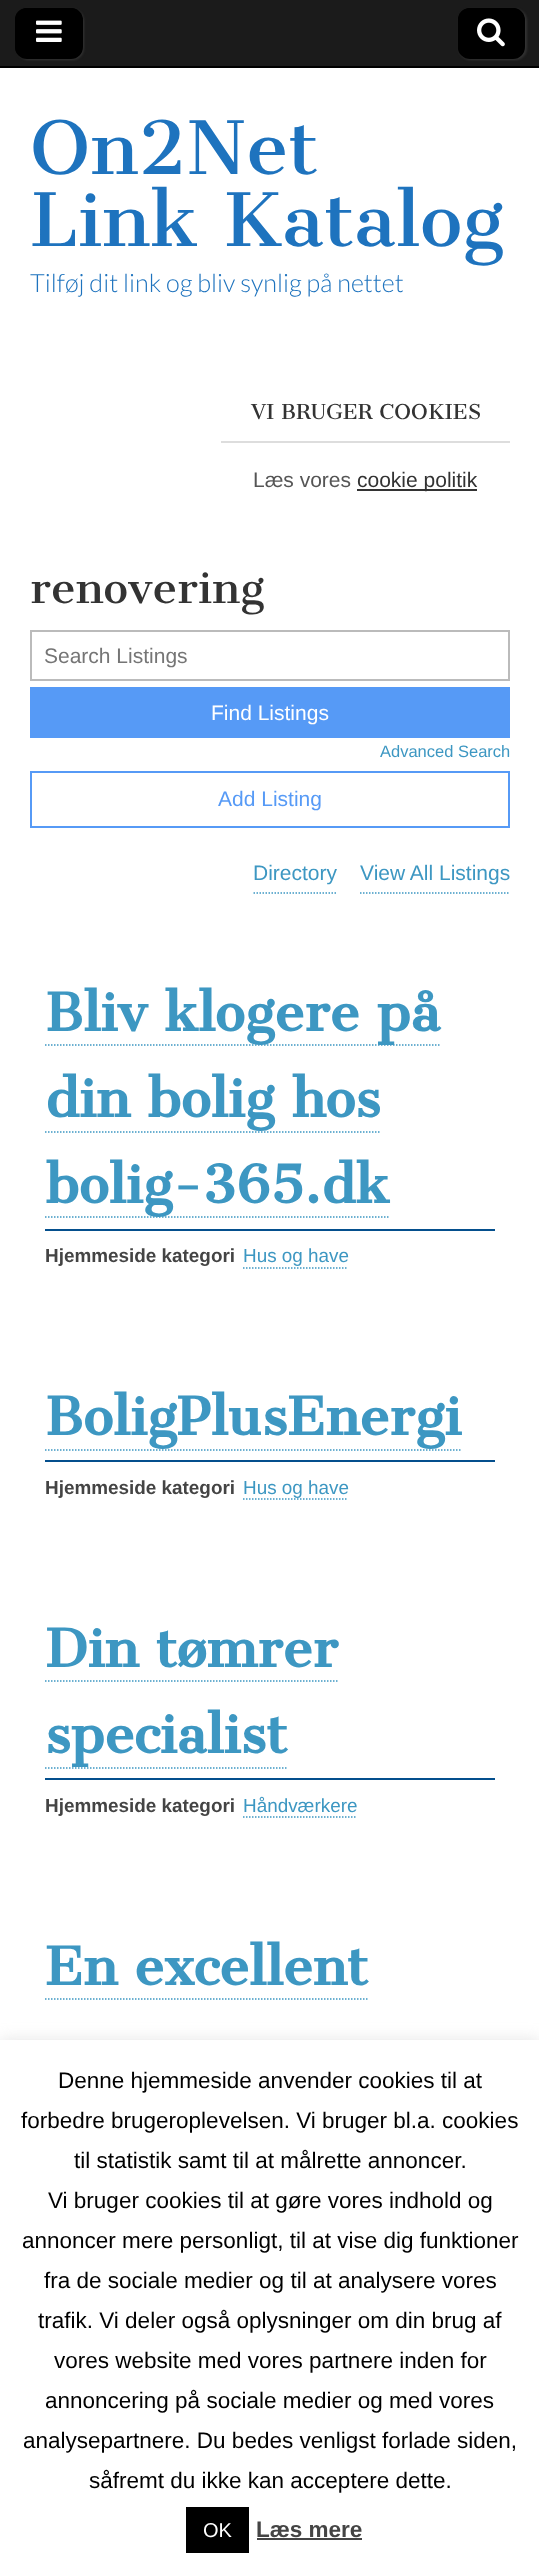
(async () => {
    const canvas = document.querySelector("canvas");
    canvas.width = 539;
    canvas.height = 2570;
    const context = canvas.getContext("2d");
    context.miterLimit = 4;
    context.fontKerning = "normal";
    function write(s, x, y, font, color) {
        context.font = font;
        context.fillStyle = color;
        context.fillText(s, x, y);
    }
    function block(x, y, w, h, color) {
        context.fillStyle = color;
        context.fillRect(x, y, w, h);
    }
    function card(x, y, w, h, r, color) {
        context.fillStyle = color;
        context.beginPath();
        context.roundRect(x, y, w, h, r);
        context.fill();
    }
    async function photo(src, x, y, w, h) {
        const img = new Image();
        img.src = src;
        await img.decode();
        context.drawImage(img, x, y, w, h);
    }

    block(0, 0, 539, 2570, "rgb(255, 255, 255)");
    block(0, 0, 539, 66, "rgb(27, 27, 27)");
    block(0, 66, 539, 2, "rgb(0, 0, 0)");
    context.fillStyle = "rgb(51, 51, 51)";
    context.filter = "blur(1px)";
    context.beginPath();
    context.roundRect(17, 9, 67, 51, 12);
    context.fill();
    context.filter = "none";
    card(15, 8, 68, 51, 12, "rgb(0, 0, 0)");
    context.beginPath();
    context.moveTo(28, 9);
    context.lineTo(72, 9);
    context.bezierCurveTo(75, 9, 77, 10, 79, 11);
    context.bezierCurveTo(77, 9, 74, 8, 71, 8);
    context.lineTo(27, 8);
    context.bezierCurveTo(20, 8, 15, 13, 15, 20);
    context.lineTo(15, 47);
    context.bezierCurveTo(15, 51, 17, 54, 19, 56);
    context.bezierCurveTo(14, 51, 16, 41, 16, 34);
    context.bezierCurveTo(16, 25, 14, 9, 28, 9);
    context.closePath();
    context.fill();
    await photo("media/1.png", 36, 20, 26, 22);
    context.fillStyle = "rgb(51, 51, 51)";
    context.filter = "blur(1px)";
    context.beginPath();
    context.roundRect(459, 9, 68, 51, 12);
    context.fill();
    context.filter = "none";
    card(458, 8, 67, 51, 12, "rgb(0, 0, 0)");
    context.beginPath();
    context.moveTo(471, 9);
    context.lineTo(514, 9);
    context.bezierCurveTo(517, 9, 519, 10, 521, 11);
    context.bezierCurveTo(519, 9, 516, 8, 513, 8);
    context.lineTo(470, 8);
    context.bezierCurveTo(463, 8, 458, 13, 458, 20);
    context.lineTo(458, 47);
    context.bezierCurveTo(458, 50, 459, 53, 461, 55);
    context.bezierCurveTo(458, 50, 459, 40, 459, 34);
    context.bezierCurveTo(459, 25, 456, 9, 471, 9);
    context.closePath();
    context.fill();
    await photo("media/2.png", 477, 18, 28, 29);
    write("On2Net", 30, 174, "72px Cantata One", "rgb(30, 115, 190)");
    write("Link Katalog", 30, 246, "72px Cantata One", "rgb(30, 115, 190)");
    write("Tilføj dit link og bliv synlig på nettet", 30, 292, "300 25.25px Lato", "rgb(30, 115, 190)");
    block(221, 441, 289, 2, "rgb(221, 221, 221)");
    write("VI BRUGER COOKIES", 251, 419, "20px Cantata One", "rgb(51, 51, 51)");
    write("Læs vores", 253, 487, "21px Liberation Sans", "rgb(85, 85, 85)");
    block(357, 489, 120, 2, "rgb(51, 51, 51)");
    write("cookie politik", 357, 487, "21px Liberation Sans", "rgb(51, 51, 51)");
    write("renovering", 30, 603, "42px Cantata One", "rgb(51, 51, 51)");
    context.strokeStyle = "rgb(187, 187, 187)";
    context.lineWidth = 2;
    context.strokeRect(31, 631, 478, 49);
    write("Search Listings", 44, 663, "21px Liberation Sans", "rgb(117, 117, 117)");
    block(30, 687, 480, 51, "rgb(86, 154, 246)");
    write("Find Listings", 211, 720, "21px Liberation Sans", "rgb(255, 255, 255)");
    write("Advanced Search", 380, 757, "16.5px Liberation Sans", "rgb(61, 151, 194)");
    context.strokeStyle = "rgb(86, 154, 246)";
    context.strokeRect(31, 772, 478, 55);
    write("Add Listing", 218, 806, "21px Liberation Sans", "rgb(86, 154, 246)");
    context.beginPath();
    context.moveTo(253.5, 893);
    context.lineTo(337.5, 893);
    context.strokeStyle = "rgb(61, 151, 194)";
    context.lineWidth = 1.5;
    context.setLineDash([1.5, 1.5]);
    context.stroke();
    write("Directory", 253, 880, "21px Liberation Sans", "rgb(61, 151, 194)");
    context.beginPath();
    context.moveTo(360, 893);
    context.lineTo(510, 893);
    context.stroke();
    write("View All Listings", 360, 880, "21px Liberation Sans", "rgb(61, 151, 194)");
    block(45, 1229, 450, 2, "rgb(4, 79, 141)");
    context.beginPath();
    context.moveTo(45, 1045);
    context.lineTo(439.5, 1045);
    context.stroke();
    write("Bliv klogere på", 45, 1031, "bold 51px Cantata One", "rgb(61, 151, 194)");
    write("din bolig hos", 45, 1117, "bold 51px Cantata One", "rgb(61, 151, 194)");
    context.beginPath();
    context.moveTo(45, 1132);
    context.lineTo(381, 1132);
    context.stroke();
    context.beginPath();
    context.moveTo(45, 1217);
    context.lineTo(390, 1217);
    context.stroke();
    write("bolig-365.dk", 45, 1203, "bold 51px Cantata One", "rgb(61, 151, 194)");
    write("Hjemmeside kategori", 45, 1262, "bold 18.9px Liberation Sans", "rgb(68, 68, 68)");
    write("Hus og have", 243, 1262, "18.9px Liberation Sans", "rgb(61, 151, 194)");
    context.beginPath();
    context.moveTo(243, 1268);
    context.lineTo(348, 1268);
    context.stroke();
    block(45, 1460, 450, 2, "rgb(4, 79, 141)");
    write("BoligPlusEnergi", 45, 1435, "bold 51px Cantata One", "rgb(61, 151, 194)");
    context.beginPath();
    context.moveTo(45, 1450);
    context.lineTo(462, 1450);
    context.stroke();
    write("Hjemmeside kategori", 45, 1494, "bold 18.9px Liberation Sans", "rgb(68, 68, 68)");
    write("Hus og have", 243, 1494, "18.9px Liberation Sans", "rgb(61, 151, 194)");
    context.beginPath();
    context.moveTo(243, 1499);
    context.lineTo(348, 1499);
    context.stroke();
    block(45, 1778, 450, 2, "rgb(4, 79, 141)");
    write("Din tømrer", 45, 1667, "bold 51px Cantata One", "rgb(61, 151, 194)");
    context.beginPath();
    context.moveTo(45, 1681);
    context.lineTo(337.5, 1681);
    context.stroke();
    write("specialist", 45, 1753, "bold 51px Cantata One", "rgb(61, 151, 194)");
    context.beginPath();
    context.moveTo(45, 1768);
    context.lineTo(288, 1768);
    context.stroke();
    write("Hjemmeside kategori", 45, 1812, "bold 18.9px Liberation Sans", "rgb(68, 68, 68)");
    write("Håndværkere", 243, 1812, "18.9px Liberation Sans", "rgb(61, 151, 194)");
    context.beginPath();
    context.moveTo(243, 1817);
    context.lineTo(357, 1817);
    context.stroke();
    write("En excellent", 45, 1985, "bold 51px Cantata One", "rgb(61, 151, 194)");
    context.beginPath();
    context.moveTo(45, 1999);
    context.lineTo(367.5, 1999);
    context.stroke();
    context.fillStyle = "rgba(172, 171, 171, 0.3)";
    context.filter = "blur(7.5px)";
    context.beginPath();
    context.rect(0, 2039, 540, 531);
    context.fill();
    context.filter = "none";
    block(0, 2040, 539, 530, "rgb(255, 255, 255)");
    write("Denne hjemmeside anvender cookies til at", 58, 2088, "22.5px Liberation Sans", "rgb(0, 0, 0)");
    write("forbedre brugeroplevelsen. Vi bruger bl.a. cookies", 21, 2128, "22.5px Liberation Sans", "rgb(0, 0, 0)");
    write("til statistik samt til at målrette annoncer.", 74, 2168, "22.5px Liberation Sans", "rgb(0, 0, 0)");
    write("Vi bruger cookies til at gøre vores indhold og", 48, 2208, "22.5px Liberation Sans", "rgb(0, 0, 0)");
    write("annoncer mere personligt, til at vise dig funktioner", 22, 2248, "22.5px Liberation Sans", "rgb(0, 0, 0)");
    write("fra de sociale medier og til at analysere vores", 44, 2288, "22.5px Liberation Sans", "rgb(0, 0, 0)");
    write("trafik. Vi deler også oplysninger om din brug af", 38, 2328, "22.5px Liberation Sans", "rgb(0, 0, 0)");
    write("vores website med vores partnere inden for", 54, 2368, "22.5px Liberation Sans", "rgb(0, 0, 0)");
    write("annoncering på sociale medier og med vores", 45, 2408, "22.5px Liberation Sans", "rgb(0, 0, 0)");
    write("analysepartnere. Du bedes venligst forlade siden,", 23, 2448, "22.5px Liberation Sans", "rgb(0, 0, 0)");
    write("såfremt du ikke kan acceptere dette.", 89, 2488, "22.5px Liberation Sans", "rgb(0, 0, 0)");
    block(186, 2507, 63, 46, "rgb(0, 0, 0)");
    write("OK", 203, 2537, "20px Liberation Sans", "rgb(255, 255, 255)");
    write("Læs mere", 256, 2537, "bold 22.5px Liberation Sans", "rgb(68, 68, 68)");
    block(257, 2538, 105, 2, "rgb(68, 68, 68)");
})();
